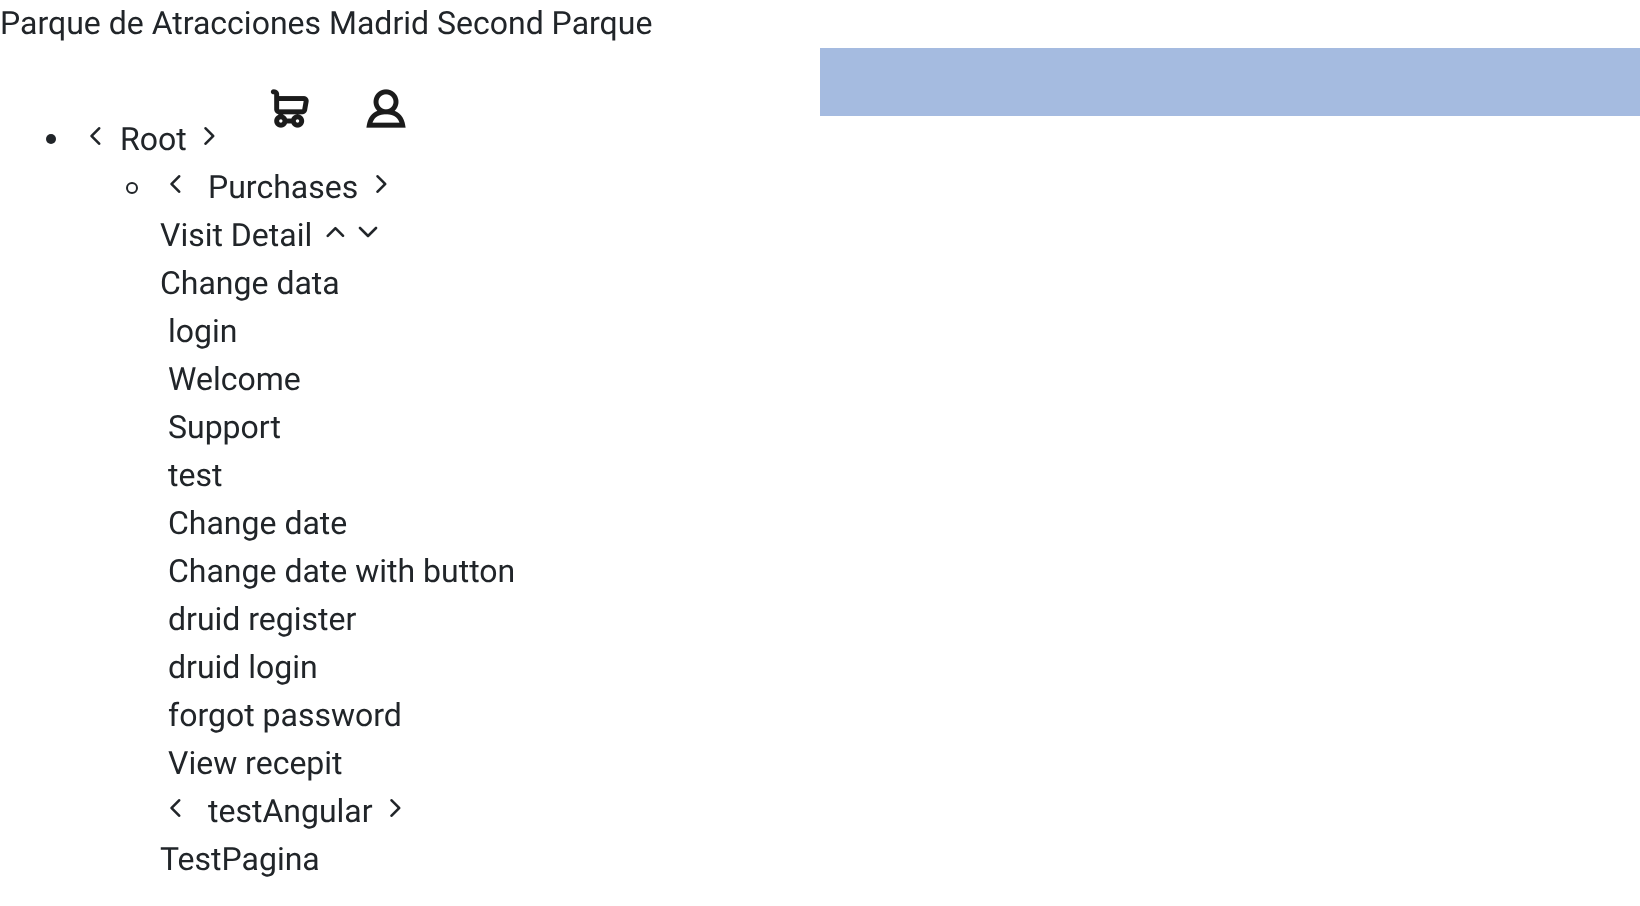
(async () => {
    const canvas = document.querySelector("canvas");
    canvas.width = 1640;
    canvas.height = 906;
    const context = canvas.getContext("2d");
    context.miterLimit = 4;
    context.fontKerning = "normal";
    function write(s, x, y, font, color) {
        context.font = font;
        context.fillStyle = color;
        context.fillText(s, x, y);
    }
    function block(x, y, w, h, color) {
        context.fillStyle = color;
        context.fillRect(x, y, w, h);
    }
    async function photo(src, x, y, w, h) {
        const img = new Image();
        img.src = src;
        await img.decode();
        context.drawImage(img, x, y, w, h);
    }

    block(0, 0, 1640, 906, "rgb(255, 255, 255)");
    write("Parque de Atracciones Madrid Second Parque", 0, 34, "32px Roboto", "rgb(33, 37, 41)");
    block(820, 48, 820, 68, "rgb(165, 187, 224)");
    await photo("media/1.png", 270, 89, 39, 39);
    await photo("media/2.png", 366, 89, 40, 39);
    context.fillStyle = "rgb(33, 37, 41)";
    context.beginPath();
    context.arc(51, 139, 5, 0, Math.PI * 2);
    context.fill();
    await photo("media/3.png", 90, 127, 11, 18);
    write("Root", 120, 150, "32px Roboto", "rgb(33, 37, 41)");
    await photo("media/4.png", 204, 127, 11, 18);
    context.beginPath();
    context.arc(132, 188, 5, 0, Math.PI * 2);
    context.strokeStyle = "rgb(33, 37, 41)";
    context.lineWidth = 2;
    context.stroke();
    await photo("media/3.png", 170, 175, 11, 18);
    write("Purchases", 208, 198, "32px Roboto", "rgb(33, 37, 41)");
    await photo("media/4.png", 376, 175, 11, 18);
    write("Visit Detail", 160, 246, "32px Roboto", "rgb(33, 37, 41)");
    await photo("media/5.png", 326, 226, 19, 12);
    await photo("media/6.png", 358, 226, 20, 12);
    write("Change data", 160, 294, "32px Roboto", "rgb(33, 37, 41)");
    write("login", 168, 342, "32px Roboto", "rgb(33, 37, 41)");
    write("Welcome", 168, 390, "32px Roboto", "rgb(33, 37, 41)");
    write("Support", 168, 438, "32px Roboto", "rgb(33, 37, 41)");
    write("test", 168, 486, "32px Roboto", "rgb(33, 37, 41)");
    write("Change date", 168, 534, "32px Roboto", "rgb(33, 37, 41)");
    write("Change date with button", 168, 582, "32px Roboto", "rgb(33, 37, 41)");
    write("druid register", 168, 630, "32px Roboto", "rgb(33, 37, 41)");
    write("druid login", 168, 678, "32px Roboto", "rgb(33, 37, 41)");
    write("forgot password", 168, 726, "32px Roboto", "rgb(33, 37, 41)");
    write("View recepit", 168, 774, "32px Roboto", "rgb(33, 37, 41)");
    await photo("media/3.png", 170, 799, 11, 18);
    write("testAngular", 208, 822, "32px Roboto", "rgb(33, 37, 41)");
    await photo("media/4.png", 390, 799, 11, 18);
    write("TestPagina", 160, 870, "32px Roboto", "rgb(33, 37, 41)");
})();
